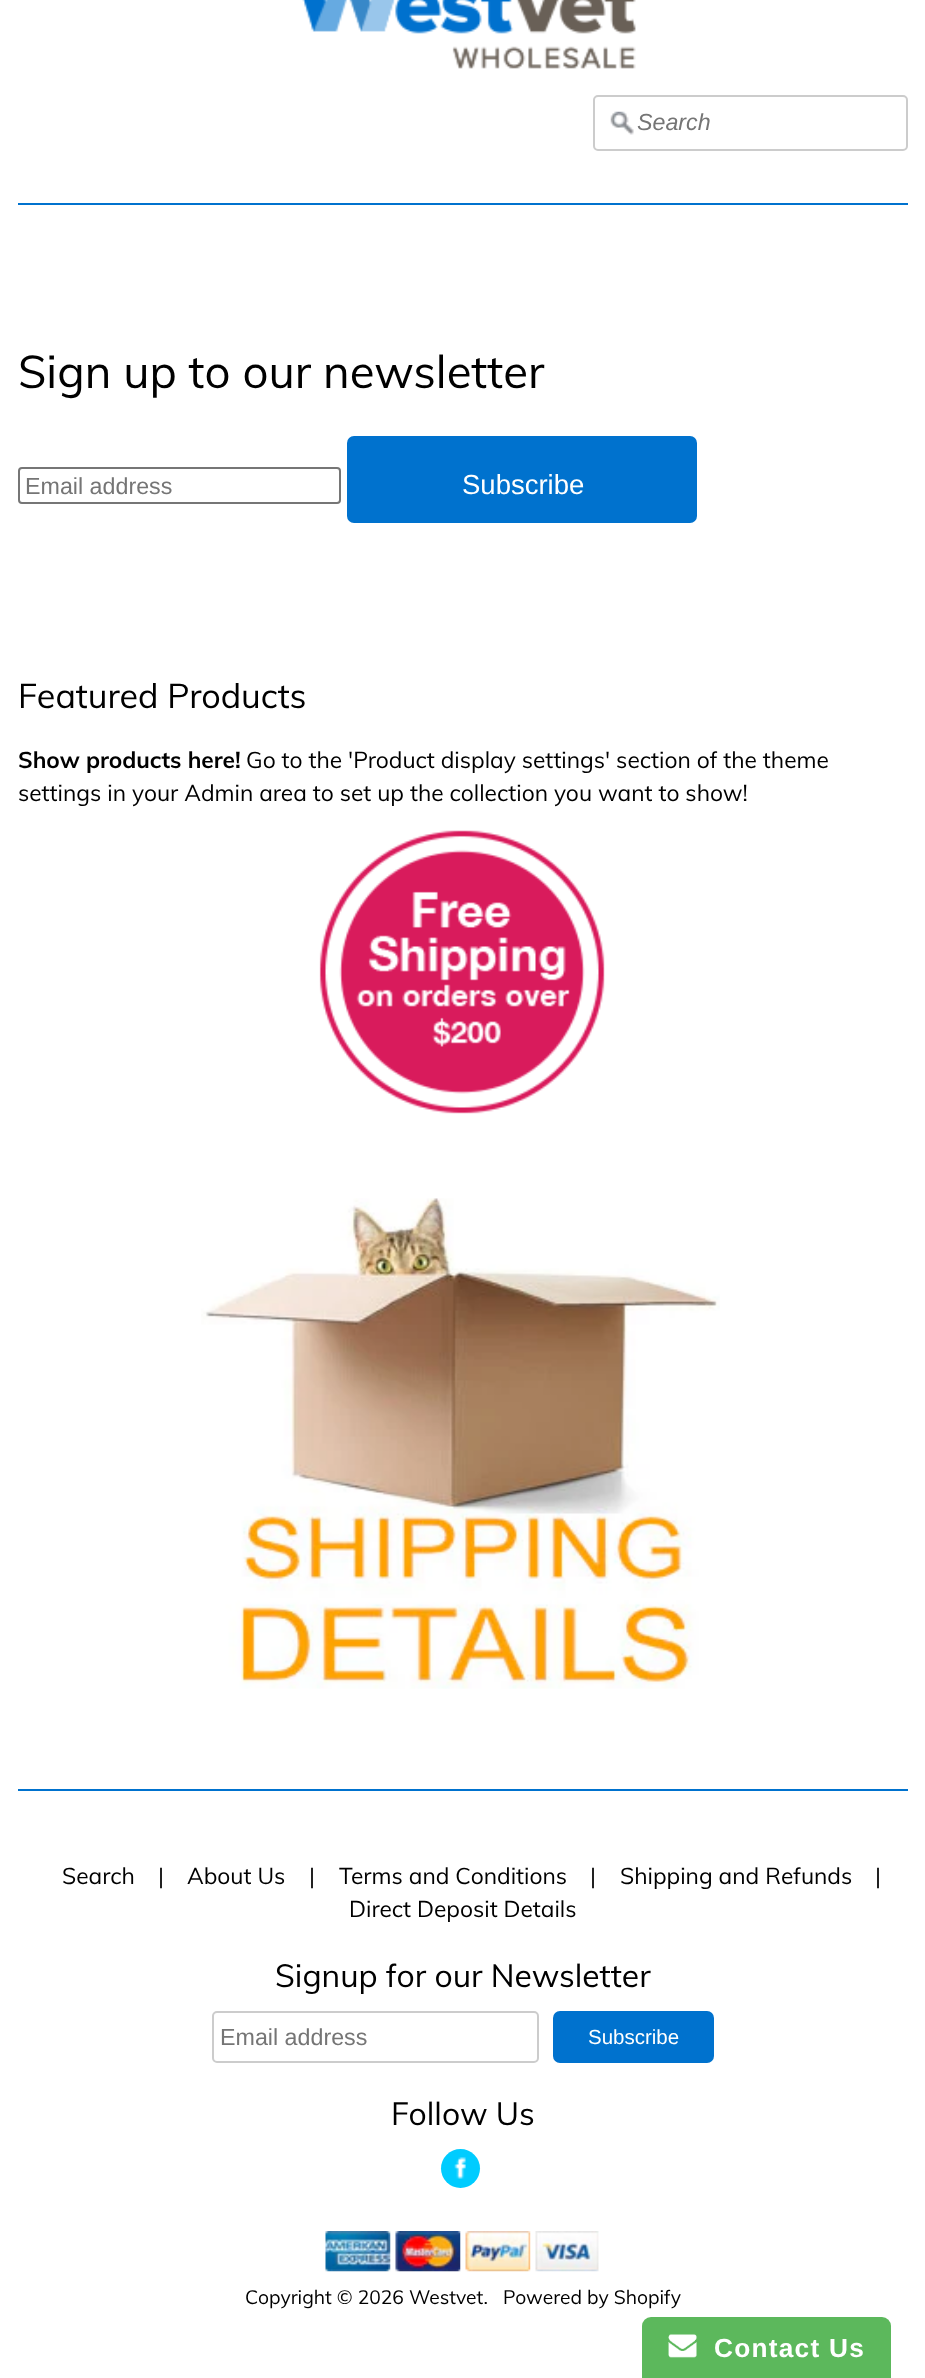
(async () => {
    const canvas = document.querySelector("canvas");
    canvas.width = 925;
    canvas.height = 2378;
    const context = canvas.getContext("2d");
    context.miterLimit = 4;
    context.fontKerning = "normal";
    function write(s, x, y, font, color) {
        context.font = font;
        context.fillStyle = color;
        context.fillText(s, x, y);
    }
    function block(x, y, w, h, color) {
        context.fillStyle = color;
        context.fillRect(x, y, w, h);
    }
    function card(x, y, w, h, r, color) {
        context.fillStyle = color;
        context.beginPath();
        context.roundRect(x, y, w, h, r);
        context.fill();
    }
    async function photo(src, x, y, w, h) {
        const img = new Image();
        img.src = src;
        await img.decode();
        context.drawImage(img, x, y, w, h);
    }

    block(0, 0, 925, 2378, "rgb(255, 255, 255)");
    await photo("media/1.png", 302, 0, 334, 69);
    await photo("media/2.png", 610, 111, 24, 24);
    context.beginPath();
    context.roundRect(594, 96, 313, 54, 4);
    context.strokeStyle = "rgb(204, 204, 204)";
    context.lineWidth = 2;
    context.stroke();
    write("Search", 637, 130, "italic 23.25px Liberation Sans", "rgb(117, 117, 117)");
    block(18, 203, 890, 2, "rgb(0, 114, 206)");
    write("Sign up to our newsletter", 18, 388, "45.5px Muli", "rgb(0, 0, 0)");
    context.beginPath();
    context.roundRect(19, 468, 321, 35, 3);
    context.strokeStyle = "rgb(118, 118, 118)";
    context.stroke();
    write("Email address", 25, 494, "23.25px Liberation Sans", "rgb(117, 117, 117)");
    card(347, 436, 350, 87, 7, "rgb(0, 114, 206)");
    write("Subscribe", 462, 494, "27.5px Liberation Sans", "rgb(255, 255, 255)");
    write("Featured Products", 18, 708, "34.1px Muli", "rgb(0, 0, 0)");
    write("Show products here!", 18, 768, "bold 22.75px Muli", "rgb(0, 0, 0)");
    write("Go to the 'Product display settings' section of the theme", 246, 768, "22.75px Muli", "rgb(0, 0, 0)");
    write("settings in your Admin area to set up the collection you want to show!", 18, 801, "22.75px Muli", "rgb(0, 0, 0)");
    await photo("media/3.png", 319, 830, 286, 284);
    await photo("media/4.png", 201, 1198, 519, 491);
    block(18, 1789, 890, 2, "rgb(0, 114, 206)");
    write("Search", 62, 1884, "22.75px Muli", "rgb(0, 0, 0)");
    write("|", 158, 1884, "22.75px Muli", "rgb(0, 0, 0)");
    write("About Us", 187, 1884, "22.75px Muli", "rgb(0, 0, 0)");
    write("|", 309, 1884, "22.75px Muli", "rgb(0, 0, 0)");
    write("Terms and Conditions", 339, 1884, "22.75px Muli", "rgb(0, 0, 0)");
    write("|", 590, 1884, "22.75px Muli", "rgb(0, 0, 0)");
    write("Shipping and Refunds", 620, 1884, "22.75px Muli", "rgb(0, 0, 0)");
    write("|", 875, 1884, "22.75px Muli", "rgb(0, 0, 0)");
    write("Direct Deposit Details", 349, 1917, "22.75px Muli", "rgb(0, 0, 0)");
    write("Signup for our Newsletter", 275, 1987, "31.8px Muli", "rgb(0, 0, 0)");
    context.beginPath();
    context.roundRect(213, 2012, 325, 50, 4);
    context.strokeStyle = "rgb(204, 204, 204)";
    context.stroke();
    write("Email address", 220, 2045, "23.25px Liberation Sans", "rgb(117, 117, 117)");
    card(553, 2011, 161, 52, 7, "rgb(0, 114, 206)");
    write("Subscribe", 588, 2044, "20.5px Liberation Sans", "rgb(255, 255, 255)");
    write("Follow Us", 391, 2125, "31.8px Muli", "rgb(0, 0, 0)");
    context.fillStyle = "rgb(0, 204, 255)";
    context.beginPath();
    context.arc(460.5, 2168.5, 19.5, 0, Math.PI * 2);
    context.fill();
    await photo("media/5.png", 454, 2157, 12, 22);
    await photo("media/6.png", 325, 2231, 66, 41);
    await photo("media/7.png", 395, 2231, 66, 41);
    await photo("media/8.png", 465, 2231, 66, 41);
    await photo("media/9.png", 535, 2231, 64, 41);
    write("Copyright © 2026 Westvet.", 245, 2304, "19.25px Muli", "rgb(0, 0, 0)");
    write("Powered by Shopify", 503, 2304, "19.25px Muli", "rgb(0, 0, 0)");
    context.fillStyle = "rgb(92, 184, 92)";
    context.beginPath();
    context.roundRect(642, 2317, 249, 61, [9, 9, 0, 0]);
    context.fill();
    await photo("media/10.png", 668, 2334, 29, 24);
    context.letterSpacing = "1.25px";
    write("Contact Us", 714, 2357, "bold 26.25px Liberation Sans", "rgb(255, 255, 255)");
})();
